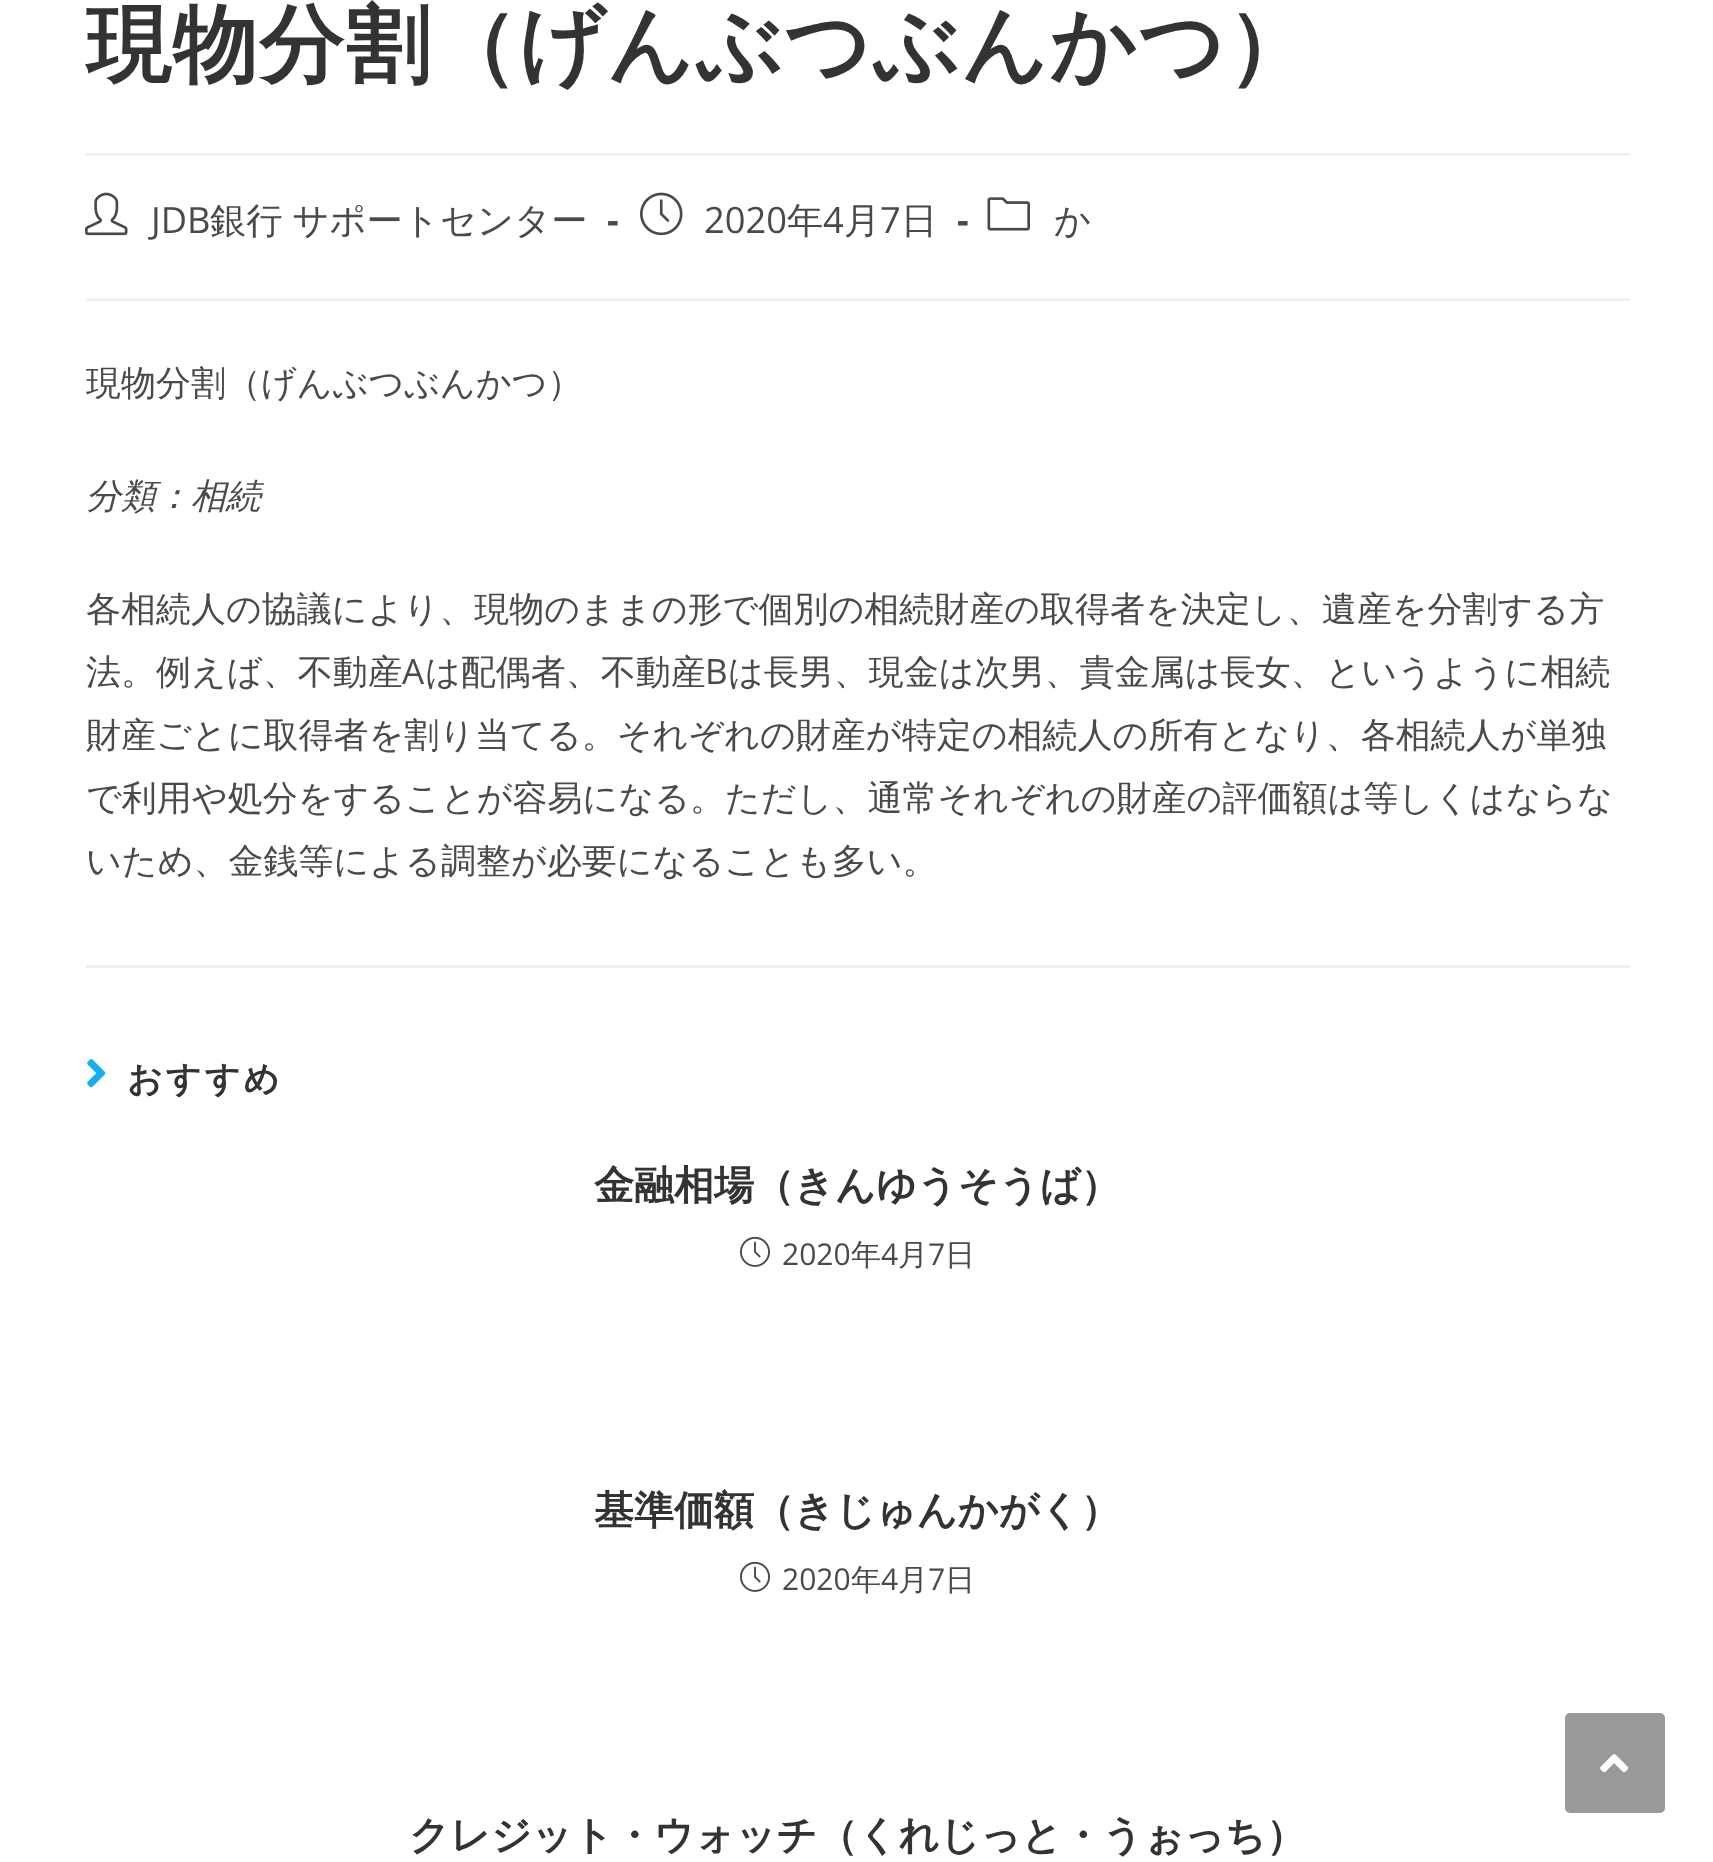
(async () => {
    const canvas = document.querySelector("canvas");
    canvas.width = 1713;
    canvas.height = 1862;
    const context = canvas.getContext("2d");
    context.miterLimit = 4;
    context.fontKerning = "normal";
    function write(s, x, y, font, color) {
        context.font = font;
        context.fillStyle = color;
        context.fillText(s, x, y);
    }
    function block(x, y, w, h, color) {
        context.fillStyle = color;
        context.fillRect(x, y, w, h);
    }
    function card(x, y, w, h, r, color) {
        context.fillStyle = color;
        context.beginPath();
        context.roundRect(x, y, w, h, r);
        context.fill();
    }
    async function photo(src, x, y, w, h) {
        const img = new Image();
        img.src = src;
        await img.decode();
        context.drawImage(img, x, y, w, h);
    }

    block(0, 0, 1713, 1862, "rgb(255, 255, 255)");
    block(85, 153, 1545, 3, "rgb(241, 241, 241)");
    context.letterSpacing = "1.5px";
    write("現物分割（げんぶつぶんかつ）", 86, 74, "bold 85px WenQuanYi Zen Hei", "rgb(51, 51, 51)");
    block(85, 298, 1545, 3, "rgb(241, 241, 241)");
    await photo("media/1.png", 85, 192, 43, 44);
    context.letterSpacing = "0px";
    write("JDB", 151, 233, "36.25px Open Sans", "rgb(74, 74, 74)");
    context.wordSpacing = "-1px";
    write("銀行 サポートセンター", 210, 233, "500 36.25px WenQuanYi Zen Hei", "rgb(74, 74, 74)");
    context.wordSpacing = "0px";
    write("-", 607, 233, "bold 36.25px Open Sans", "rgb(74, 74, 74)");
    await photo("media/2.png", 640, 192, 43, 44);
    write("2020", 704, 233, "36.25px Open Sans", "rgb(74, 74, 74)");
    write("年", 787, 233, "500 36.25px WenQuanYi Zen Hei", "rgb(74, 74, 74)");
    write("4", 823, 233, "36.25px Open Sans", "rgb(74, 74, 74)");
    write("月", 844, 233, "500 36.25px WenQuanYi Zen Hei", "rgb(74, 74, 74)");
    write("7", 880, 233, "36.25px Open Sans", "rgb(74, 74, 74)");
    write("日", 901, 233, "500 36.25px WenQuanYi Zen Hei", "rgb(74, 74, 74)");
    write("-", 957, 233, "bold 36.25px Open Sans", "rgb(74, 74, 74)");
    await photo("media/3.png", 987, 197, 43, 34);
    write("か", 1054, 233, "500 36.25px WenQuanYi Zen Hei", "rgb(74, 74, 74)");
    write("現物分割（げんぶつぶんかつ）", 86, 395, "500 35px WenQuanYi Zen Hei", "rgb(74, 74, 74)");
    write("分類：相続", 86, 508, "italic 500 35px WenQuanYi Zen Hei", "rgb(74, 74, 74)");
    write("各相続人の協議により、現物のままの形で個別の相続財産の取得者を決定し、遺産を分割する方", 86, 621, "500 35px WenQuanYi Zen Hei", "rgb(74, 74, 74)");
    write("法。例えば、不動産", 86, 684, "500 35px WenQuanYi Zen Hei", "rgb(74, 74, 74)");
    write("A", 402, 684, "35px Open Sans", "rgb(74, 74, 74)");
    write("は配偶者、不動産", 425, 684, "500 35px WenQuanYi Zen Hei", "rgb(74, 74, 74)");
    write("B", 705, 684, "35px Open Sans", "rgb(74, 74, 74)");
    write("は長男、現金は次男、貴金属は長女、というように相続", 728, 684, "500 35px WenQuanYi Zen Hei", "rgb(74, 74, 74)");
    write("財産ごとに取得者を割り当てる。それぞれの財産が特定の相続人の所有となり、各相続人が単独", 86, 747, "500 35px WenQuanYi Zen Hei", "rgb(74, 74, 74)");
    write("で利用や処分をすることが容易になる。ただし、通常それぞれの財産の評価額は等しくはならな", 86, 810, "500 35px WenQuanYi Zen Hei", "rgb(74, 74, 74)");
    write("いため、金銭等による調整が必要になることも多い。", 86, 873, "500 35px WenQuanYi Zen Hei", "rgb(74, 74, 74)");
    block(85, 965, 1545, 3, "rgb(241, 241, 241)");
    await photo("media/4.png", 87, 1059, 19, 29);
    context.letterSpacing = "3px";
    write("おすすめ", 127, 1091, "bold 35px WenQuanYi Zen Hei", "rgb(51, 51, 51)");
    context.letterSpacing = "0px";
    write("金融相場（きんゆうそうば）", 594, 1199, "bold 40px WenQuanYi Zen Hei", "rgb(51, 51, 51)");
    await photo("media/5.png", 740, 1236, 30, 31);
    write("2020", 782, 1265, "30px Open Sans", "rgb(74, 74, 74)");
    write("年", 851, 1265, "500 30px WenQuanYi Zen Hei", "rgb(74, 74, 74)");
    write("4", 881, 1265, "30px Open Sans", "rgb(74, 74, 74)");
    write("月", 898, 1265, "500 30px WenQuanYi Zen Hei", "rgb(74, 74, 74)");
    write("7", 928, 1265, "30px Open Sans", "rgb(74, 74, 74)");
    write("日", 945, 1265, "500 30px WenQuanYi Zen Hei", "rgb(74, 74, 74)");
    write("基準価額（きじゅんかがく）", 594, 1524, "bold 40px WenQuanYi Zen Hei", "rgb(51, 51, 51)");
    await photo("media/5.png", 740, 1561, 30, 31);
    write("2020", 782, 1590, "30px Open Sans", "rgb(74, 74, 74)");
    write("年", 851, 1590, "500 30px WenQuanYi Zen Hei", "rgb(74, 74, 74)");
    write("4", 881, 1590, "30px Open Sans", "rgb(74, 74, 74)");
    write("月", 898, 1590, "500 30px WenQuanYi Zen Hei", "rgb(74, 74, 74)");
    write("7", 928, 1590, "30px Open Sans", "rgb(74, 74, 74)");
    write("日", 945, 1590, "500 30px WenQuanYi Zen Hei", "rgb(74, 74, 74)");
    write("クレジット・ウォッチ（くれじっと・うぉっち）", 409, 1849, "bold 40px WenQuanYi Zen Hei", "rgb(51, 51, 51)");
    card(1565, 1713, 100, 100, 5, "rgb(153, 153, 153)");
    await photo("media/6.png", 1600, 1754, 29, 19);
})();
